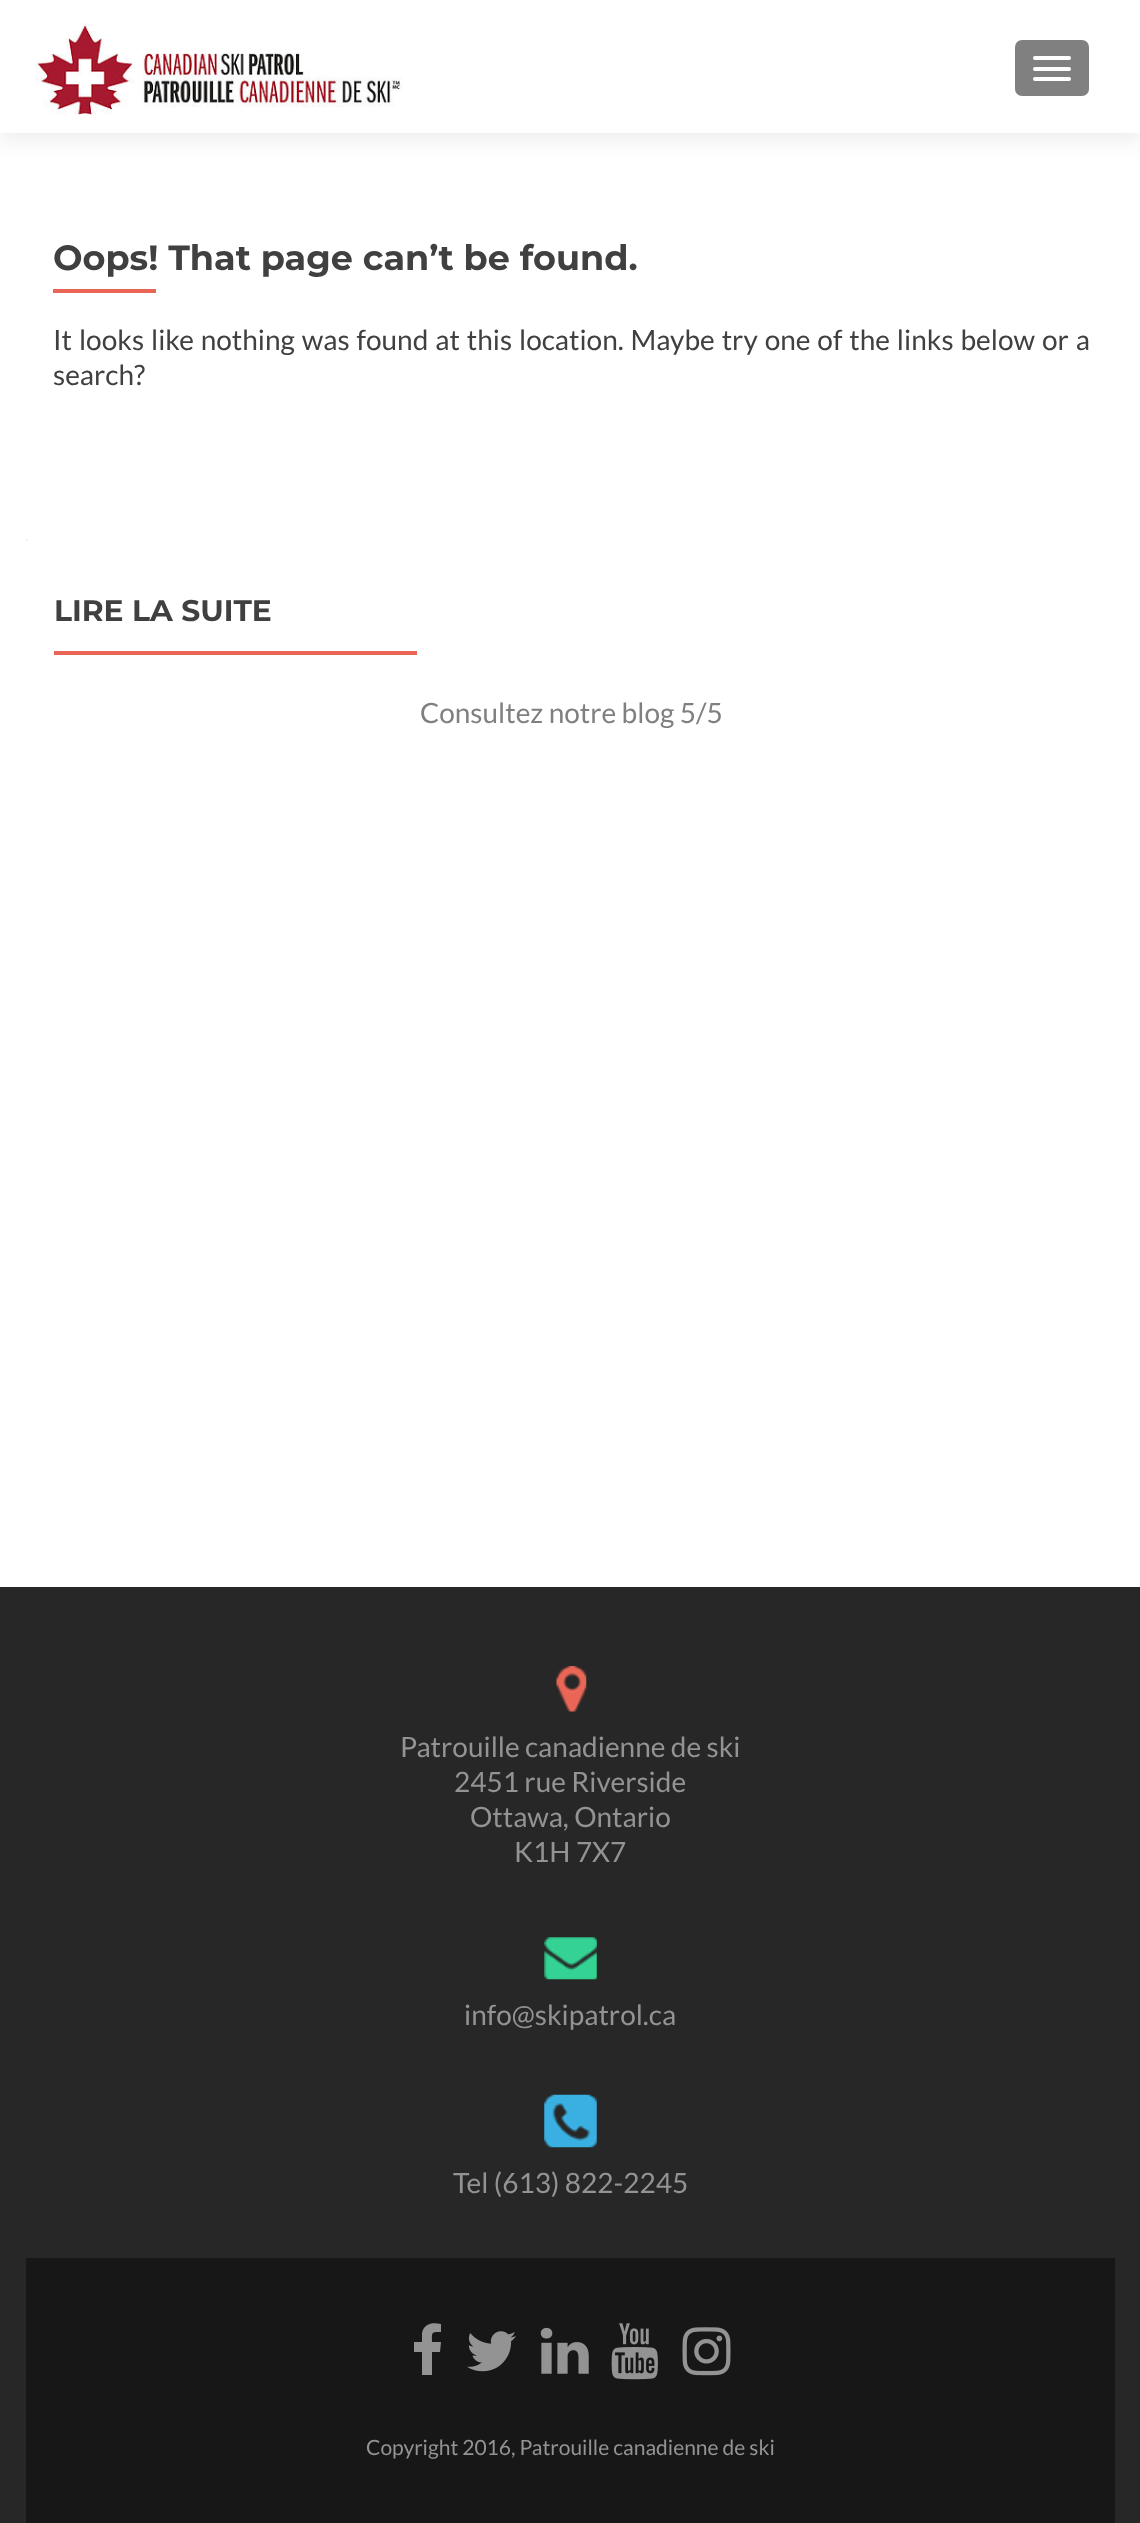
(async () => {
    const canvas = document.querySelector("canvas");
    canvas.width = 1140;
    canvas.height = 2523;
    const context = canvas.getContext("2d");
    context.miterLimit = 4;
    context.fontKerning = "normal";
    function write(s, x, y, font, color) {
        context.font = font;
        context.fillStyle = color;
        context.fillText(s, x, y);
    }
    function block(x, y, w, h, color) {
        context.fillStyle = color;
        context.fillRect(x, y, w, h);
    }
    function card(x, y, w, h, r, color) {
        context.fillStyle = color;
        context.beginPath();
        context.roundRect(x, y, w, h, r);
        context.fill();
    }
    async function photo(src, x, y, w, h) {
        const img = new Image();
        img.src = src;
        await img.decode();
        context.drawImage(img, x, y, w, h);
    }

    block(0, 0, 1140, 2523, "rgb(255, 255, 255)");
    context.fillStyle = "rgba(50, 50, 50, 0.08)";
    context.filter = "blur(9.5px)";
    context.beginPath();
    context.rect(0, 9, 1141, 133);
    context.fill();
    context.filter = "none";
    block(0, 0, 1140, 133, "rgb(255, 255, 255)");
    await photo("media/1.png", 35, 23, 367, 92);
    card(1015, 40, 74, 56, 7, "rgb(128, 128, 128)");
    card(1033, 56, 38, 4, 2, "rgb(255, 255, 255)");
    card(1033, 67, 38, 4, 2, "rgb(255, 255, 255)");
    card(1033, 77, 38, 4, 2, "rgb(255, 255, 255)");
    write("Oops! That page can’t be found.", 53, 270, "100 35px Montserrat", "rgb(64, 64, 64)");
    block(53, 289, 103, 4, "rgb(233, 102, 86)");
    context.wordSpacing = "1.5px";
    write("It looks like nothing was found at this location. Maybe try one of the links below or a", 53, 350, "28px Lato", "rgb(64, 64, 64)");
    context.wordSpacing = "0px";
    write("search?", 53, 385, "28px Lato", "rgb(64, 64, 64)");
    block(26, 539, 2, 2, "rgb(242, 242, 242)");
    write("LIRE LA SUITE", 54, 621, "100 29.75px Montserrat", "rgb(64, 64, 64)");
    block(54, 651, 363, 4, "rgb(233, 102, 86)");
    write("Consultez notre blog 5/5", 420, 723, "28px Lato", "rgb(128, 128, 128)");
    block(0, 1587, 1140, 936, "rgb(39, 39, 39)");
    await photo("media/2.png", 556, 1666, 31, 46);
    write("Patrouille canadienne de ski", 400, 1757, "28px Lato", "rgb(147, 147, 147)");
    write("2451 rue Riverside", 454, 1792, "28px Lato", "rgb(147, 147, 147)");
    write("Ottawa, Ontario", 470, 1827, "28px Lato", "rgb(147, 147, 147)");
    write("K1H 7X7", 514, 1862, "28px Lato", "rgb(147, 147, 147)");
    await photo("media/3.png", 544, 1937, 53, 43);
    write("info@skipatrol.ca", 464, 2025, "28px Lato", "rgb(147, 147, 147)");
    await photo("media/4.png", 544, 2094, 53, 54);
    write("Tel (613) 822-2245", 453, 2193, "28px Lato", "rgb(147, 147, 147)");
    block(26, 2258, 1089, 265, "rgb(23, 23, 23)");
    context.fillStyle = "rgb(147, 147, 147)";
    context.beginPath();
    context.moveTo(441, 2324);
    context.lineTo(441, 2332);
    context.bezierCurveTo(431, 2332, 432, 2332, 432, 2342);
    context.lineTo(441, 2342);
    context.lineTo(440, 2352);
    context.lineTo(432, 2352);
    context.lineTo(432, 2375);
    context.lineTo(422, 2375);
    context.lineTo(422, 2352);
    context.lineTo(414, 2352);
    context.lineTo(414, 2342);
    context.lineTo(422, 2342);
    context.lineTo(422, 2333);
    context.bezierCurveTo(424, 2323, 433, 2322, 441, 2324);
    context.closePath();
    context.fill();
    await photo("media/5.png", 467, 2331, 49, 41);
    await photo("media/6.png", 540, 2327, 49, 47);
    await photo("media/7.png", 611, 2323, 47, 57);
    await photo("media/8.png", 682, 2327, 49, 49);
    write("Copyright 2016, Patrouille canadienne de ski", 366, 2455, "21px Lato", "rgb(147, 147, 147)");
})();
